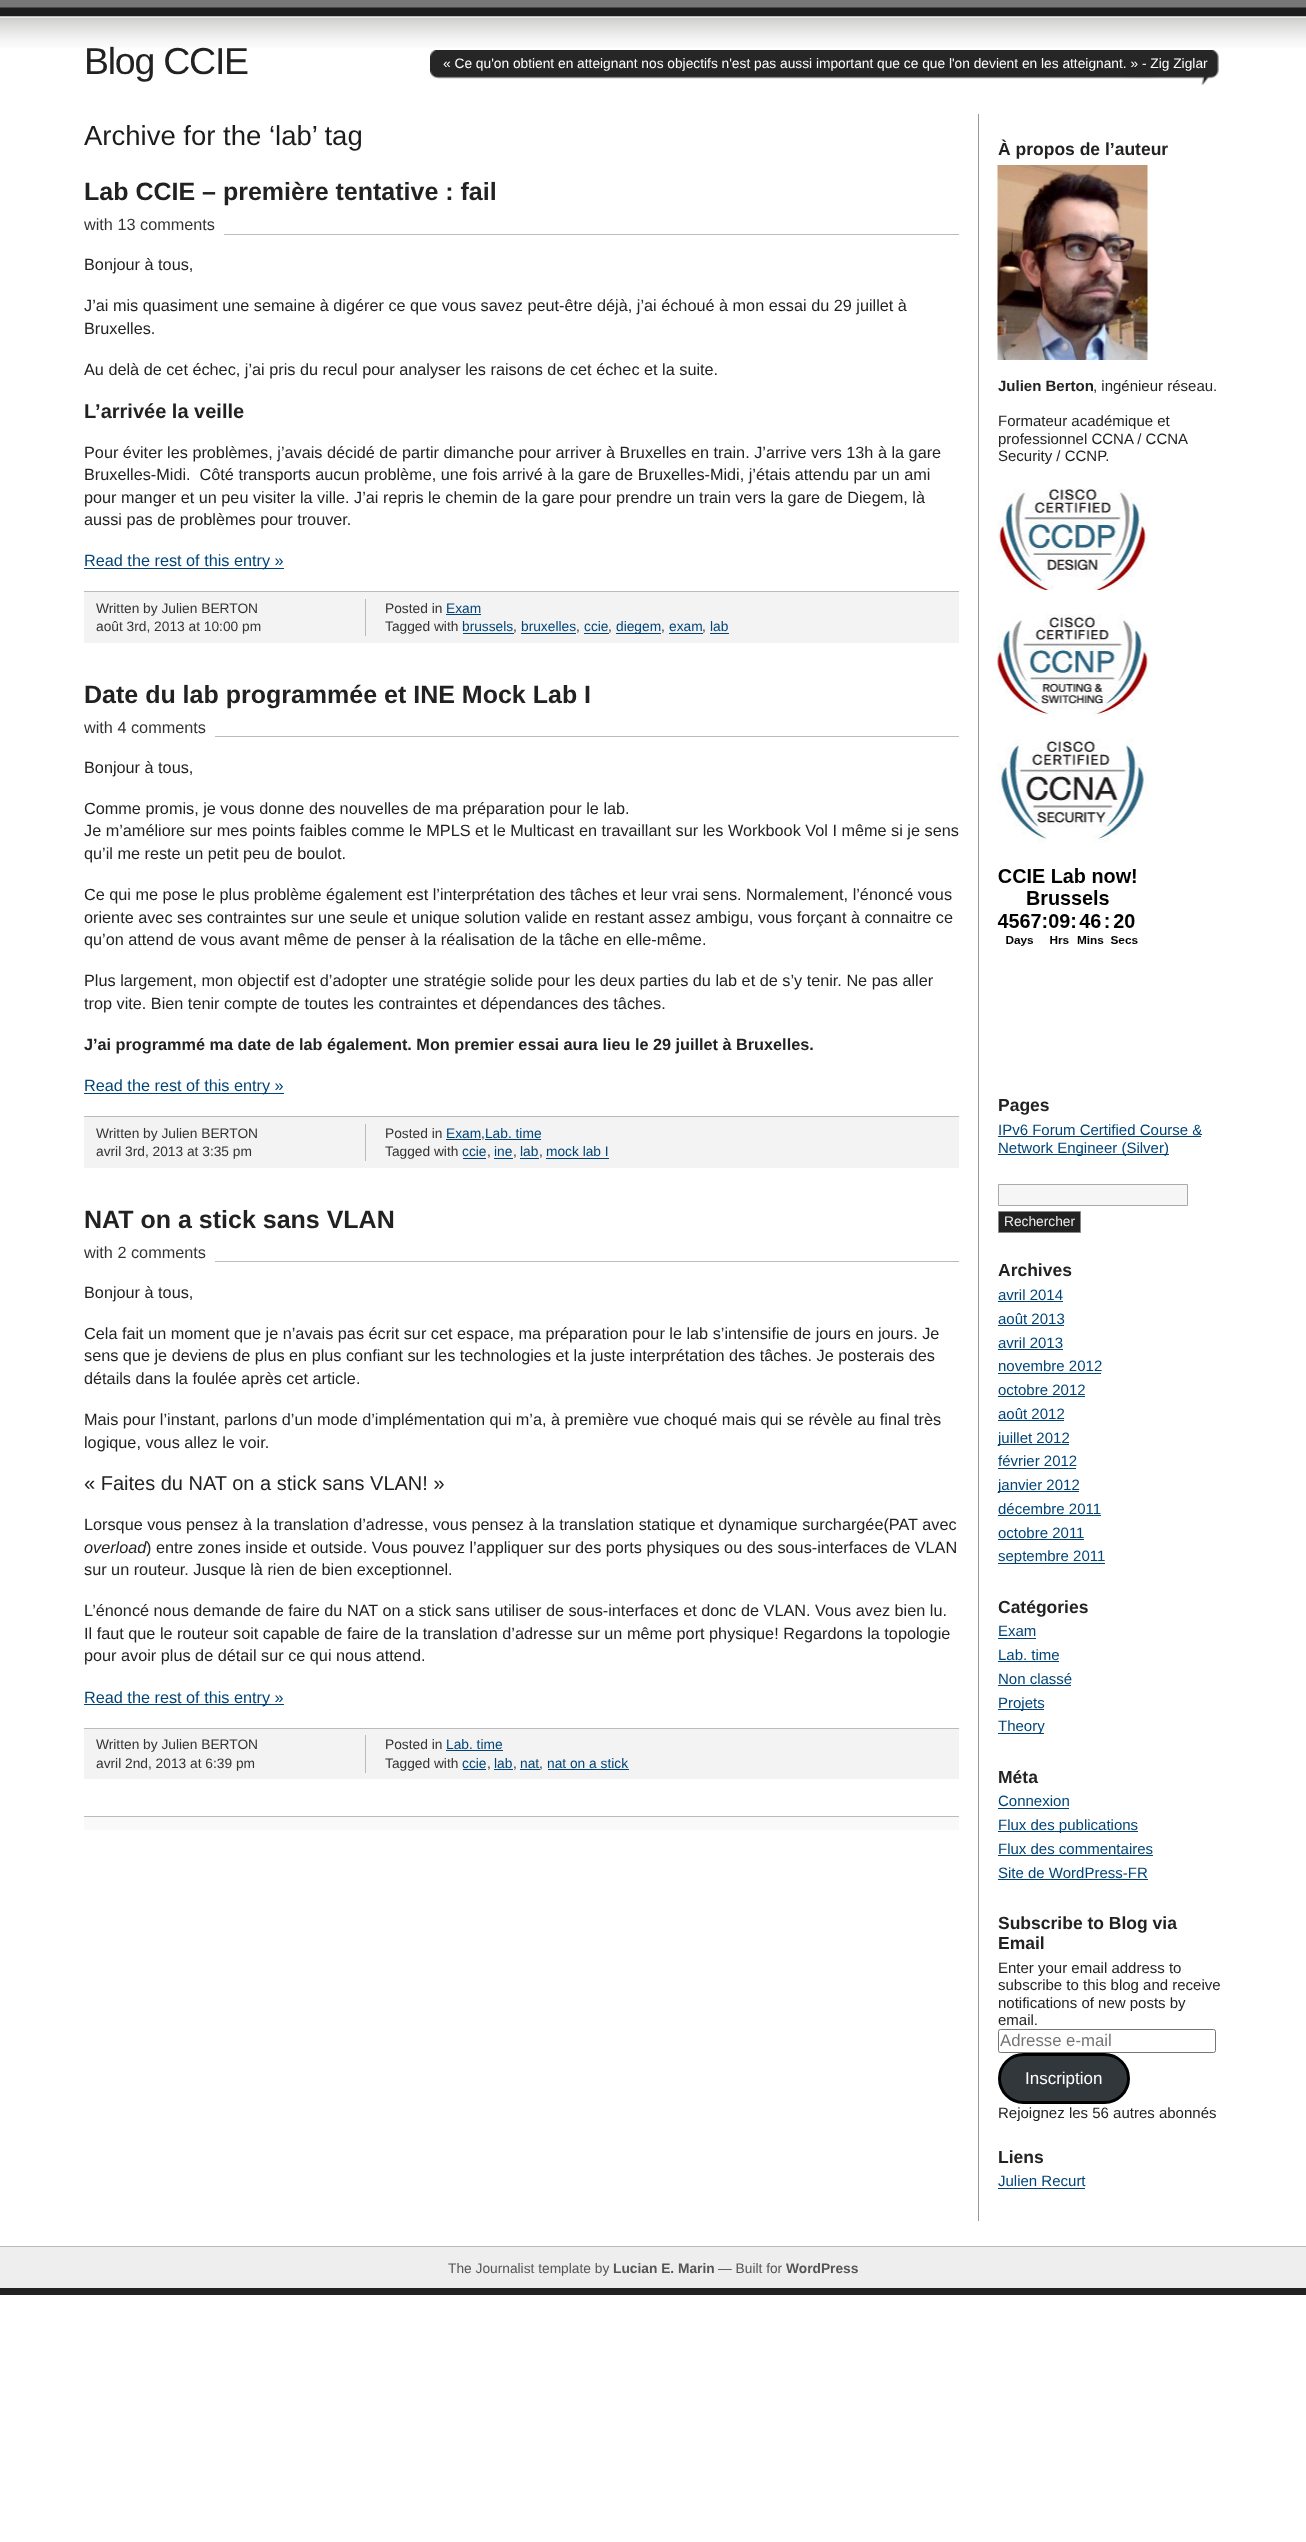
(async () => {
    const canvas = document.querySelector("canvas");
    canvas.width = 1306;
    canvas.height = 2542;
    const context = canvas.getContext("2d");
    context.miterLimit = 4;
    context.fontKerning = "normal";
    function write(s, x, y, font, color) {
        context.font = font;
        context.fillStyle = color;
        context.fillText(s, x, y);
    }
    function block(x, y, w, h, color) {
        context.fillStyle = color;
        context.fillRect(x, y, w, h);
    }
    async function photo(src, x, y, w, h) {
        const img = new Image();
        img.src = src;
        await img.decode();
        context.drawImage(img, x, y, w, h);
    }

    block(0, 0, 1306, 2542, "rgb(255, 255, 255)");
    await photo("media/1.png", 0, 0, 1306, 48);
    context.letterSpacing = "-1.25px";
    write("Blog CCIE", 84, 74, "37.5px Liberation Sans", "rgb(34, 34, 34)");
    await photo("media/2.png", 430, 50, 789, 35);
    await photo("media/3.png", 430, 50, 8, 29);
    context.letterSpacing = "0px";
    write("« Ce qu'on obtient en atteignant nos objectifs n'est pas aussi important que ce que l'on devient en les atteignant. » - Zig Ziglar", 443, 68, "13.75px Liberation Sans", "rgb(255, 255, 255)");
    write("Archive for the ‘lab’ tag", 84, 145, "27.5px Liberation Sans", "rgb(28, 28, 28)");
    write("Lab CCIE – première tentative : fail", 84, 200, "bold 25px Liberation Sans", "rgb(34, 34, 34)");
    block(224, 234, 735, 1, "rgb(187, 187, 187)");
    write("with 13 comments", 84, 230, "16.25px Liberation Sans", "rgb(51, 51, 51)");
    write("Bonjour à tous,", 84, 270, "16.25px Liberation Sans", "rgb(34, 34, 34)");
    write("J’ai mis quasiment une semaine à digérer ce que vous savez peut-être déjà, j’ai échoué à mon essai du 29 juillet à", 84, 311, "16.25px Liberation Sans", "rgb(34, 34, 34)");
    write("Bruxelles.", 84, 334, "16.25px Liberation Sans", "rgb(34, 34, 34)");
    write("Au delà de cet échec, j’ai pris du recul pour analyser les raisons de cet échec et la suite.", 84, 375, "16.25px Liberation Sans", "rgb(34, 34, 34)");
    write("L’arrivée la veille", 84, 418, "bold 20px Liberation Sans", "rgb(34, 34, 34)");
    write("Pour éviter les problèmes, j’avais décidé de partir dimanche pour arriver à Bruxelles en train. J’arrive vers 13h à la gare", 84, 458, "16.25px Liberation Sans", "rgb(34, 34, 34)");
    write("Bruxelles-Midi.  Côté transports aucun problème, une fois arrivé à la gare de Bruxelles-Midi, j’étais attendu par un ami", 84, 480, "16.25px Liberation Sans", "rgb(34, 34, 34)");
    write("pour manger et un peu visiter la ville. J’ai repris le chemin de la gare pour prendre un train vers la gare de Diegem, là", 84, 503, "16.25px Liberation Sans", "rgb(34, 34, 34)");
    write("aussi pas de problèmes pour trouver.", 84, 525, "16.25px Liberation Sans", "rgb(34, 34, 34)");
    block(84, 568, 200, 1, "rgb(0, 68, 119)");
    write("Read the rest of this entry »", 84, 566, "16.25px Liberation Sans", "rgb(0, 68, 119)");
    block(84, 592, 875, 51, "rgb(243, 243, 243)");
    block(84, 591, 875, 1, "rgb(187, 187, 187)");
    block(365, 599, 1, 37, "rgb(187, 187, 187)");
    write("Written by Julien BERTON", 96, 613, "13.75px Liberation Sans", "rgb(51, 51, 51)");
    write("août 3rd, 2013 at 10:00 pm", 96, 631, "13.75px Liberation Sans", "rgb(51, 51, 51)");
    write("Posted in", 385, 613, "13.75px Liberation Sans", "rgb(51, 51, 51)");
    write("Exam", 446, 613, "13.75px Liberation Sans", "rgb(0, 68, 119)");
    block(446, 614, 35, 1, "rgb(0, 68, 119)");
    write("Tagged with", 385, 631, "13.75px Liberation Sans", "rgb(51, 51, 51)");
    write("brussels", 462, 631, "13.75px Liberation Sans", "rgb(0, 68, 119)");
    block(463, 633, 51, 1, "rgb(0, 68, 119)");
    write(",", 513, 631, "13.75px Liberation Sans", "rgb(51, 51, 51)");
    write("bruxelles", 521, 631, "13.75px Liberation Sans", "rgb(0, 68, 119)");
    block(521, 633, 55, 1, "rgb(0, 68, 119)");
    write(",", 576, 631, "13.75px Liberation Sans", "rgb(51, 51, 51)");
    write("ccie", 584, 631, "13.75px Liberation Sans", "rgb(0, 68, 119)");
    block(584, 633, 25, 1, "rgb(0, 68, 119)");
    write(",", 608, 631, "13.75px Liberation Sans", "rgb(51, 51, 51)");
    block(616, 633, 45, 1, "rgb(0, 68, 119)");
    write("diegem", 616, 631, "13.75px Liberation Sans", "rgb(0, 68, 119)");
    write(",", 661, 631, "13.75px Liberation Sans", "rgb(51, 51, 51)");
    write("exam", 669, 631, "13.75px Liberation Sans", "rgb(0, 68, 119)");
    block(669, 633, 34, 1, "rgb(0, 68, 119)");
    write(",", 702, 631, "13.75px Liberation Sans", "rgb(51, 51, 51)");
    write("lab", 710, 631, "13.75px Liberation Sans", "rgb(0, 68, 119)");
    block(710, 633, 19, 1, "rgb(0, 68, 119)");
    write("Date du lab programmée et INE Mock Lab I", 84, 703, "bold 25px Liberation Sans", "rgb(34, 34, 34)");
    block(215, 736, 744, 1, "rgb(187, 187, 187)");
    write("with 4 comments", 84, 733, "16.25px Liberation Sans", "rgb(51, 51, 51)");
    write("Bonjour à tous,", 84, 773, "16.25px Liberation Sans", "rgb(34, 34, 34)");
    write("Comme promis, je vous donne des nouvelles de ma préparation pour le lab.", 84, 814, "16.25px Liberation Sans", "rgb(34, 34, 34)");
    write("Je m’améliore sur mes points faibles comme le MPLS et le Multicast en travaillant sur les Workbook Vol I même si je sens", 84, 836, "16.25px Liberation Sans", "rgb(34, 34, 34)");
    write("qu’il me reste un petit peu de boulot.", 84, 859, "16.25px Liberation Sans", "rgb(34, 34, 34)");
    write("Ce qui me pose le plus problème également est l’interprétation des tâches et leur vrai sens. Normalement, l’énoncé vous", 84, 900, "16.25px Liberation Sans", "rgb(34, 34, 34)");
    write("oriente avec ses contraintes sur une seule et unique solution valide en restant assez ambigu, vous forçant à connaitre ce", 84, 923, "16.25px Liberation Sans", "rgb(34, 34, 34)");
    write("qu’on attend de vous avant même de penser à la réalisation de la tâche en elle-même.", 84, 945, "16.25px Liberation Sans", "rgb(34, 34, 34)");
    write("Plus largement, mon objectif est d’adopter une stratégie solide pour les deux parties du lab et de s’y tenir. Ne pas aller", 84, 986, "16.25px Liberation Sans", "rgb(34, 34, 34)");
    write("trop vite. Bien tenir compte de toutes les contraintes et dépendances des tâches.", 84, 1009, "16.25px Liberation Sans", "rgb(34, 34, 34)");
    write("J’ai programmé ma date de lab également. Mon premier essai aura lieu le 29 juillet à Bruxelles.", 84, 1050, "bold 16.25px Liberation Sans", "rgb(34, 34, 34)");
    block(84, 1093, 200, 1, "rgb(0, 68, 119)");
    write("Read the rest of this entry »", 84, 1091, "16.25px Liberation Sans", "rgb(0, 68, 119)");
    block(84, 1117, 875, 51, "rgb(243, 243, 243)");
    block(84, 1116, 875, 1, "rgb(187, 187, 187)");
    block(365, 1124, 1, 37, "rgb(187, 187, 187)");
    write("Written by Julien BERTON", 96, 1138, "13.75px Liberation Sans", "rgb(51, 51, 51)");
    write("avril 3rd, 2013 at 3:35 pm", 96, 1156, "13.75px Liberation Sans", "rgb(51, 51, 51)");
    write("Posted in", 385, 1138, "13.75px Liberation Sans", "rgb(51, 51, 51)");
    write("Exam Lab. time", 446, 1138, "13.75px Liberation Sans", "rgb(0, 68, 119)");
    block(446, 1139, 35, 1, "rgb(0, 68, 119)");
    write(",", 481, 1138, "13.75px Liberation Sans", "rgb(51, 51, 51)");
    block(485, 1139, 56, 1, "rgb(0, 68, 119)");
    write("Tagged with", 385, 1156, "13.75px Liberation Sans", "rgb(51, 51, 51)");
    write("ccie", 462, 1156, "13.75px Liberation Sans", "rgb(0, 68, 119)");
    block(463, 1158, 23, 1, "rgb(0, 68, 119)");
    write(",", 487, 1156, "13.75px Liberation Sans", "rgb(51, 51, 51)");
    write("ine", 494, 1156, "13.75px Liberation Sans", "rgb(0, 68, 119)");
    block(494, 1158, 19, 1, "rgb(0, 68, 119)");
    write(",", 513, 1156, "13.75px Liberation Sans", "rgb(51, 51, 51)");
    write("lab", 520, 1156, "13.75px Liberation Sans", "rgb(0, 68, 119)");
    block(520, 1158, 19, 1, "rgb(0, 68, 119)");
    write(",", 539, 1156, "13.75px Liberation Sans", "rgb(51, 51, 51)");
    write("mock lab I", 546, 1156, "13.75px Liberation Sans", "rgb(0, 68, 119)");
    block(546, 1158, 63, 1, "rgb(0, 68, 119)");
    write("NAT on a stick sans VLAN", 84, 1228, "bold 25px Liberation Sans", "rgb(34, 34, 34)");
    block(215, 1261, 744, 1, "rgb(187, 187, 187)");
    write("with 2 comments", 84, 1258, "16.25px Liberation Sans", "rgb(51, 51, 51)");
    write("Bonjour à tous,", 84, 1298, "16.25px Liberation Sans", "rgb(34, 34, 34)");
    write("Cela fait un moment que je n’avais pas écrit sur cet espace, ma préparation pour le lab s’intensifie de jours en jours. Je", 84, 1339, "16.25px Liberation Sans", "rgb(34, 34, 34)");
    write("sens que je deviens de plus en plus confiant sur les technologies et la juste interprétation des tâches. Je posterais des", 84, 1361, "16.25px Liberation Sans", "rgb(34, 34, 34)");
    write("détails dans la foulée après cet article.", 84, 1384, "16.25px Liberation Sans", "rgb(34, 34, 34)");
    write("Mais pour l’instant, parlons d’un mode d’implémentation qui m’a, à première vue choqué mais qui se révèle au final très", 84, 1425, "16.25px Liberation Sans", "rgb(34, 34, 34)");
    write("logique, vous allez le voir.", 84, 1448, "16.25px Liberation Sans", "rgb(34, 34, 34)");
    write("« Faites du NAT on a stick sans VLAN! »", 84, 1490, "20px Liberation Sans", "rgb(34, 34, 34)");
    write("Lorsque vous pensez à la translation d’adresse, vous pensez à la translation statique et dynamique surchargée(PAT avec", 84, 1530, "16.25px Liberation Sans", "rgb(34, 34, 34)");
    write("overload", 84, 1553, "italic 16.25px Liberation Sans", "rgb(34, 34, 34)");
    write(") entre zones inside et outside. Vous pouvez l’appliquer sur des ports physiques ou des sous-interfaces de VLAN", 146, 1553, "16.25px Liberation Sans", "rgb(34, 34, 34)");
    write("sur un routeur. Jusque là rien de bien exceptionnel.", 84, 1575, "16.25px Liberation Sans", "rgb(34, 34, 34)");
    write("L’énoncé nous demande de faire du NAT on a stick sans utiliser de sous-interfaces et donc de VLAN. Vous avez bien lu.", 84, 1616, "16.25px Liberation Sans", "rgb(34, 34, 34)");
    write("Il faut que le routeur soit capable de faire de la translation d’adresse sur un même port physique! Regardons la topologie", 84, 1639, "16.25px Liberation Sans", "rgb(34, 34, 34)");
    write("pour avoir plus de détail sur ce qui nous attend.", 84, 1661, "16.25px Liberation Sans", "rgb(34, 34, 34)");
    block(84, 1704, 200, 1, "rgb(0, 68, 119)");
    write("Read the rest of this entry »", 84, 1703, "16.25px Liberation Sans", "rgb(0, 68, 119)");
    block(84, 1729, 875, 50, "rgb(243, 243, 243)");
    block(84, 1728, 875, 1, "rgb(187, 187, 187)");
    block(365, 1735, 1, 38, "rgb(187, 187, 187)");
    write("Written by Julien BERTON", 96, 1749, "13.75px Liberation Sans", "rgb(51, 51, 51)");
    write("avril 2nd, 2013 at 6:39 pm", 96, 1768, "13.75px Liberation Sans", "rgb(51, 51, 51)");
    write("Posted in", 385, 1749, "13.75px Liberation Sans", "rgb(51, 51, 51)");
    write("Lab. time", 446, 1749, "13.75px Liberation Sans", "rgb(0, 68, 119)");
    block(446, 1750, 57, 1, "rgb(0, 68, 119)");
    write("Tagged with", 385, 1768, "13.75px Liberation Sans", "rgb(51, 51, 51)");
    write("ccie", 462, 1768, "13.75px Liberation Sans", "rgb(0, 68, 119)");
    block(463, 1769, 23, 1, "rgb(0, 68, 119)");
    write(",", 487, 1768, "13.75px Liberation Sans", "rgb(51, 51, 51)");
    write("lab", 494, 1768, "13.75px Liberation Sans", "rgb(0, 68, 119)");
    block(494, 1769, 19, 1, "rgb(0, 68, 119)");
    write(",", 513, 1768, "13.75px Liberation Sans", "rgb(51, 51, 51)");
    write("nat", 520, 1768, "13.75px Liberation Sans", "rgb(0, 68, 119)");
    block(520, 1769, 20, 1, "rgb(0, 68, 119)");
    write(",", 539, 1768, "13.75px Liberation Sans", "rgb(51, 51, 51)");
    write("nat on a stick", 547, 1768, "13.75px Liberation Sans", "rgb(0, 68, 119)");
    block(548, 1769, 81, 1, "rgb(0, 68, 119)");
    block(84, 1817, 875, 13, "rgb(249, 249, 249)");
    block(84, 1816, 875, 1, "rgb(187, 187, 187)");
    block(978, 114, 1, 2107, "rgb(153, 153, 153)");
    write("À propos de l’auteur", 998, 155, "bold 17.5px Liberation Sans", "rgb(34, 34, 34)");
    await photo("media/4.png", 997, 165, 151, 195);
    write("Julien Berton", 998, 391, "bold 15px Liberation Sans", "rgb(34, 34, 34)");
    write(", ingénieur réseau.", 1093, 391, "15px Liberation Sans", "rgb(34, 34, 34)");
    write("Formateur académique et", 998, 426, "15px Liberation Sans", "rgb(34, 34, 34)");
    write("professionnel CCNA / CCNA", 998, 444, "15px Liberation Sans", "rgb(34, 34, 34)");
    write("Security / CCNP.", 998, 461, "15px Liberation Sans", "rgb(34, 34, 34)");
    await photo("media/5.png", 997, 489, 151, 104);
    await photo("media/6.png", 997, 590, 151, 128);
    await photo("media/7.png", 997, 715, 151, 128);
    await photo("media/8.png", 997, 868, 141, 78);
    write("Pages", 998, 1111, "bold 17.5px Liberation Sans", "rgb(34, 34, 34)");
    write("IPv6 Forum Certified Course &", 998, 1135, "15px Liberation Sans", "rgb(0, 68, 119)");
    block(998, 1136, 203, 1, "rgb(0, 68, 119)");
    block(998, 1154, 171, 1, "rgb(0, 68, 119)");
    write("Network Engineer (Silver)", 998, 1153, "15px Liberation Sans", "rgb(0, 68, 119)");
    context.fillStyle = "rgb(246, 246, 246)";
    context.beginPath();
    context.rect(998.5, 1184.5, 189, 21);
    context.fill();
    context.strokeStyle = "rgb(170, 170, 170)";
    context.stroke();
    context.fillStyle = "rgb(34, 34, 34)";
    context.beginPath();
    context.rect(998.5, 1211.5, 82, 21);
    context.fill();
    context.strokeStyle = "rgb(136, 136, 136)";
    context.stroke();
    write("Rechercher", 1004, 1226, "13.75px Liberation Sans", "rgb(238, 238, 238)");
    write("Archives", 998, 1276, "bold 17.5px Liberation Sans", "rgb(34, 34, 34)");
    write("avril 2014", 998, 1300, "15px Liberation Sans", "rgb(0, 68, 119)");
    block(998, 1301, 65, 1, "rgb(0, 68, 119)");
    write("août 2013", 998, 1324, "15px Liberation Sans", "rgb(0, 68, 119)");
    block(998, 1325, 66, 1, "rgb(0, 68, 119)");
    write("avril 2013", 998, 1348, "15px Liberation Sans", "rgb(0, 68, 119)");
    block(998, 1349, 65, 1, "rgb(0, 68, 119)");
    write("novembre 2012", 998, 1371, "15px Liberation Sans", "rgb(0, 68, 119)");
    block(998, 1373, 103, 1, "rgb(0, 68, 119)");
    write("octobre 2012", 998, 1395, "15px Liberation Sans", "rgb(0, 68, 119)");
    block(998, 1396, 87, 1, "rgb(0, 68, 119)");
    write("août 2012", 998, 1419, "15px Liberation Sans", "rgb(0, 68, 119)");
    block(998, 1420, 66, 1, "rgb(0, 68, 119)");
    block(998, 1444, 71, 1, "rgb(0, 68, 119)");
    write("juillet 2012", 998, 1443, "15px Liberation Sans", "rgb(0, 68, 119)");
    write("février 2012", 998, 1466, "15px Liberation Sans", "rgb(0, 68, 119)");
    block(998, 1468, 78, 1, "rgb(0, 68, 119)");
    block(998, 1491, 81, 1, "rgb(0, 68, 119)");
    write("janvier 2012", 998, 1490, "15px Liberation Sans", "rgb(0, 68, 119)");
    write("décembre 2011", 998, 1514, "15px Liberation Sans", "rgb(0, 68, 119)");
    block(998, 1515, 103, 1, "rgb(0, 68, 119)");
    write("octobre 2011", 998, 1538, "15px Liberation Sans", "rgb(0, 68, 119)");
    block(998, 1539, 86, 1, "rgb(0, 68, 119)");
    block(998, 1563, 107, 1, "rgb(0, 68, 119)");
    write("septembre 2011", 998, 1561, "15px Liberation Sans", "rgb(0, 68, 119)");
    write("Catégories", 998, 1613, "bold 17.5px Liberation Sans", "rgb(34, 34, 34)");
    write("Exam", 998, 1636, "15px Liberation Sans", "rgb(0, 68, 119)");
    block(998, 1638, 38, 1, "rgb(0, 68, 119)");
    write("Lab. time", 998, 1660, "15px Liberation Sans", "rgb(0, 68, 119)");
    block(998, 1661, 61, 1, "rgb(0, 68, 119)");
    write("Non classé", 998, 1684, "15px Liberation Sans", "rgb(0, 68, 119)");
    block(998, 1685, 73, 1, "rgb(0, 68, 119)");
    block(998, 1709, 46, 1, "rgb(0, 68, 119)");
    write("Projets", 998, 1708, "15px Liberation Sans", "rgb(0, 68, 119)");
    block(998, 1733, 46, 1, "rgb(0, 68, 119)");
    write("Theory", 998, 1731, "15px Liberation Sans", "rgb(0, 68, 119)");
    write("Méta", 998, 1783, "bold 17.5px Liberation Sans", "rgb(34, 34, 34)");
    write("Connexion", 998, 1806, "15px Liberation Sans", "rgb(0, 68, 119)");
    block(998, 1808, 71, 1, "rgb(0, 68, 119)");
    block(998, 1831, 140, 1, "rgb(0, 68, 119)");
    write("Flux des publications", 998, 1830, "15px Liberation Sans", "rgb(0, 68, 119)");
    write("Flux des commentaires", 998, 1854, "15px Liberation Sans", "rgb(0, 68, 119)");
    block(998, 1855, 155, 1, "rgb(0, 68, 119)");
    write("Site de WordPress-FR", 998, 1878, "15px Liberation Sans", "rgb(0, 68, 119)");
    block(998, 1879, 150, 1, "rgb(0, 68, 119)");
    write("Subscribe to Blog via", 998, 1929, "bold 17.5px Liberation Sans", "rgb(34, 34, 34)");
    write("Email", 998, 1949, "bold 17.5px Liberation Sans", "rgb(34, 34, 34)");
    write("Enter your email address to", 998, 1973, "15px Liberation Sans", "rgb(34, 34, 34)");
    write("subscribe to this blog and receive", 998, 1990, "15px Liberation Sans", "rgb(34, 34, 34)");
    write("notifications of new posts by", 998, 2008, "15px Liberation Sans", "rgb(34, 34, 34)");
    write("email.", 998, 2025, "15px Liberation Sans", "rgb(34, 34, 34)");
    context.beginPath();
    context.roundRect(998.5, 2029.5, 217, 23, 2);
    context.strokeStyle = "rgb(118, 118, 118)";
    context.stroke();
    write("Adresse e-mail", 1000, 2046, "16.75px Liberation Sans", "rgb(117, 117, 117)");
    context.fillStyle = "rgb(50, 55, 60)";
    context.beginPath();
    context.roundRect(999.5, 2054.5, 129, 48, 24);
    context.fill();
    context.strokeStyle = "rgb(0, 0, 0)";
    context.lineWidth = 3;
    context.stroke();
    write("Inscription", 1025, 2084, "17px Liberation Sans", "rgb(255, 255, 255)");
    write("Rejoignez les 56 autres abonnés", 998, 2118, "15px Liberation Sans", "rgb(34, 34, 34)");
    write("Liens", 998, 2163, "bold 17.5px Liberation Sans", "rgb(34, 34, 34)");
    write("Julien Recurt", 998, 2186, "15px Liberation Sans", "rgb(0, 68, 119)");
    block(998, 2188, 87, 1, "rgb(0, 68, 119)");
    block(0, 2247, 1306, 41, "rgb(238, 238, 238)");
    block(0, 2246, 1306, 1, "rgb(187, 187, 187)");
    block(0, 2288, 1306, 7, "rgb(34, 34, 34)");
    write("The Journalist template by", 448, 2273, "13.75px Liberation Sans", "rgb(85, 85, 85)");
    write("Lucian E. Marin", 613, 2273, "bold 13.75px Liberation Sans", "rgb(85, 85, 85)");
    write("— Built for", 718, 2273, "13.75px Liberation Sans", "rgb(85, 85, 85)");
    write("WordPress", 786, 2273, "bold 13.75px Liberation Sans", "rgb(85, 85, 85)");
})();
